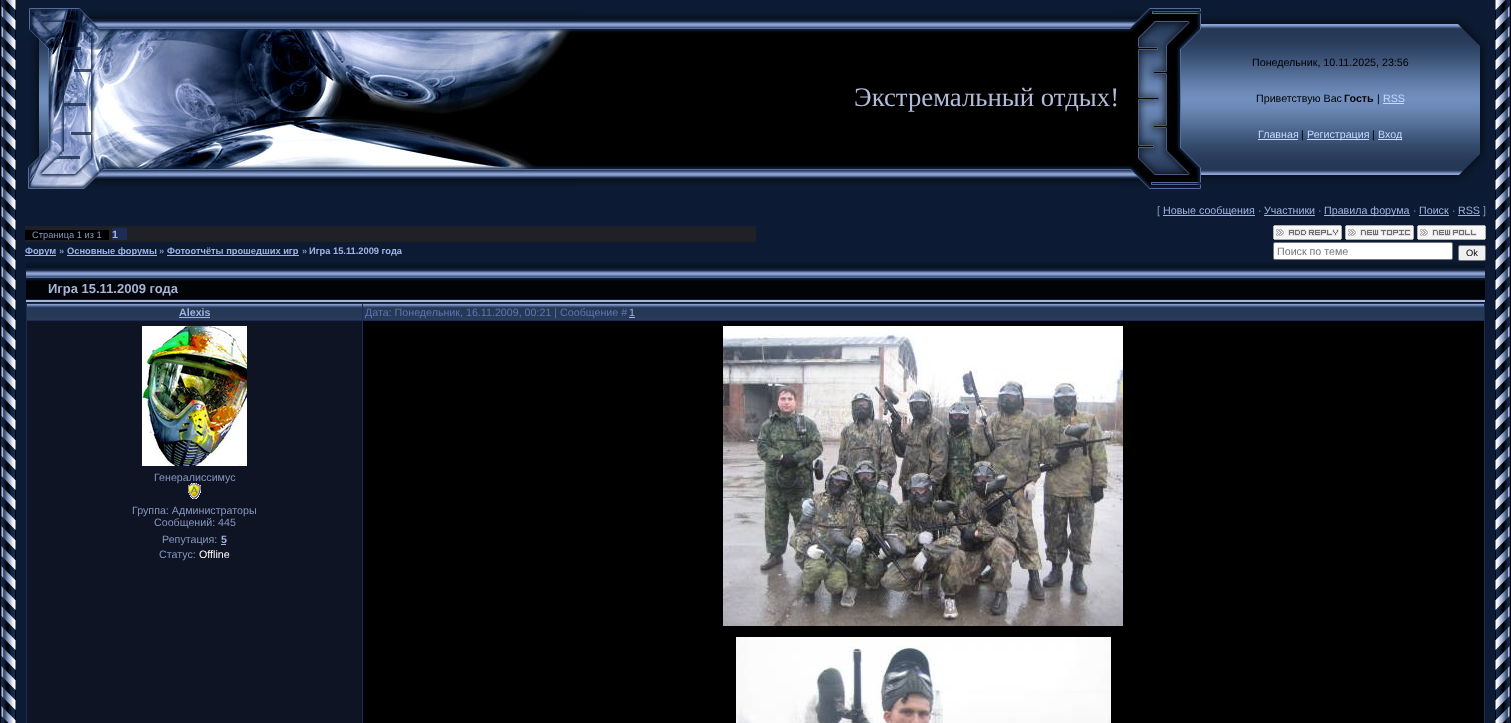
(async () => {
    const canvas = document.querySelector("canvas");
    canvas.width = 1511;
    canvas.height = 723;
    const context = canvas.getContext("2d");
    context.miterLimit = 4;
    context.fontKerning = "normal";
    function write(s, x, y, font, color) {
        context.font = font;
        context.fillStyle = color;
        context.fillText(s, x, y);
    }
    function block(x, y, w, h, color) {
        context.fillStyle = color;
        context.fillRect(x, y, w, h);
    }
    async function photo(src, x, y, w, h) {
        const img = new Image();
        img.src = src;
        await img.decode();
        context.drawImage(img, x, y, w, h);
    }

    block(0, 0, 1511, 723, "rgb(12, 27, 51)");
    await photo("media/1.png", 0, 0, 16, 723);
    await photo("media/2.png", 578, 12, 877, 174);
    await photo("media/3.png", 25, 8, 80, 184);
    await photo("media/4.png", 105, 11, 473, 176);
    write("Экстремальный отдых!", 854, 106, "26.75px Liberation Serif", "rgb(179, 187, 219)");
    await photo("media/5.png", 1118, 8, 87, 184);
    await photo("media/6.png", 1205, 13, 250, 173);
    write("Понедельник, 10.11.2025, 23:56", 1252, 66, "10.7px Liberation Sans", "rgb(0, 0, 0)");
    write("Приветствую Вас", 1256, 102, "10.7px Liberation Sans", "rgb(0, 0, 0)");
    write("Гость", 1344, 102, "bold 10.7px Liberation Sans", "rgb(0, 0, 0)");
    write("|", 1377, 102, "10.7px Liberation Sans", "rgb(0, 0, 0)");
    write("RSS", 1383, 102, "10.7px Liberation Sans", "rgb(201, 217, 255)");
    block(1383, 103, 21, 1, "rgb(201, 217, 255)");
    write("Главная", 1258, 138, "10.7px Liberation Sans", "rgb(201, 217, 255)");
    block(1258, 139, 40, 1, "rgb(201, 217, 255)");
    write("|", 1301, 138, "10.7px Liberation Sans", "rgb(0, 0, 0)");
    block(1307, 139, 62, 1, "rgb(201, 217, 255)");
    write("Регистрация", 1307, 138, "10.7px Liberation Sans", "rgb(201, 217, 255)");
    write("|", 1372, 138, "10.7px Liberation Sans", "rgb(0, 0, 0)");
    block(1378, 139, 24, 1, "rgb(201, 217, 255)");
    write("Вход", 1378, 138, "10.7px Liberation Sans", "rgb(201, 217, 255)");
    await photo("media/7.png", 1455, 12, 31, 174);
    write("[", 1157, 214, "10.7px Liberation Sans", "rgb(133, 150, 191)");
    block(1163, 215, 92, 1, "rgb(159, 180, 229)");
    write("Новые сообщения", 1163, 214, "10.7px Liberation Sans", "rgb(159, 180, 229)");
    write("·", 1258, 214, "10.7px Liberation Sans", "rgb(133, 150, 191)");
    write("Участники", 1264, 214, "10.7px Liberation Sans", "rgb(159, 180, 229)");
    block(1264, 215, 51, 1, "rgb(159, 180, 229)");
    write("·", 1318, 214, "10.7px Liberation Sans", "rgb(133, 150, 191)");
    block(1324, 215, 86, 1, "rgb(159, 180, 229)");
    write("Правила форума", 1324, 214, "10.7px Liberation Sans", "rgb(159, 180, 229)");
    write("·", 1413, 214, "10.7px Liberation Sans", "rgb(133, 150, 191)");
    write("Поиск", 1419, 214, "10.7px Liberation Sans", "rgb(159, 180, 229)");
    block(1419, 215, 30, 1, "rgb(159, 180, 229)");
    write("·", 1452, 214, "10.7px Liberation Sans", "rgb(133, 150, 191)");
    write("RSS", 1458, 214, "10.7px Liberation Sans", "rgb(159, 180, 229)");
    block(1458, 215, 22, 1, "rgb(159, 180, 229)");
    write("]", 1483, 214, "10.7px Liberation Sans", "rgb(133, 150, 191)");
    block(25, 226, 731, 16, "rgb(31, 33, 39)");
    block(25, 230, 84, 10, "rgb(0, 0, 0)");
    write("Страница 1 из 1", 32, 238, "9.3px Liberation Sans", "rgb(133, 150, 191)");
    block(112, 228, 15, 12, "rgb(29, 44, 87)");
    write("1", 112, 238, "bold 10.7px Liberation Sans", "rgb(169, 181, 216)");
    await photo("media/8.png", 1273, 225, 69, 15);
    await photo("media/9.png", 1345, 225, 69, 15);
    await photo("media/10.png", 1417, 225, 69, 15);
    block(25, 255, 31, 1, "rgb(159, 180, 229)");
    write("Форум", 25, 254, "bold 9.3px Liberation Sans", "rgb(159, 180, 229)");
    write("»", 59, 254, "bold 9.3px Liberation Sans", "rgb(133, 150, 191)");
    block(67, 255, 90, 1, "rgb(159, 180, 229)");
    write("Основные форумы", 67, 254, "bold 9.3px Liberation Sans", "rgb(159, 180, 229)");
    write("»", 159, 254, "bold 9.3px Liberation Sans", "rgb(133, 150, 191)");
    block(167, 255, 132, 1, "rgb(159, 180, 229)");
    write("Фотоотчёты прошедших игр", 167, 254, "bold 9.3px Liberation Sans", "rgb(159, 180, 229)");
    write("»", 302, 254, "bold 9.3px Liberation Sans", "rgb(133, 150, 191)");
    write("Игра 15.11.2009 года", 309, 254, "bold 9.3px Liberation Sans", "rgb(159, 180, 229)");
    context.fillStyle = "rgb(255, 255, 255)";
    context.beginPath();
    context.roundRect(1273.5, 242.5, 179, 17, 1.5);
    context.fill();
    context.strokeStyle = "rgb(118, 118, 118)";
    context.stroke();
    write("Поиск по теме", 1277, 255, "10.7px Liberation Sans", "rgb(117, 117, 117)");
    context.fillStyle = "rgb(239, 239, 239)";
    context.beginPath();
    context.roundRect(1458.5, 245.5, 27, 15, 1.5);
    context.fill();
    context.stroke();
    write("Ok", 1466, 256, "9.3px Liberation Sans", "rgb(0, 0, 0)");
    await photo("media/11.png", 26, 262, 1459, 37);
    write("Игра 15.11.2009 года", 48, 293, "bold 13px Liberation Sans", "rgb(169, 181, 216)");
    block(26, 300, 1459, 2, "rgb(169, 181, 216)");
    block(26, 303, 1459, 420, "rgb(29, 44, 87)");
    await photo("media/12.png", 27, 304, 335, 16);
    write("Alexis", 179, 316, "bold 10.7px Liberation Sans", "rgb(159, 180, 229)");
    block(179, 317, 31, 1, "rgb(159, 180, 229)");
    await photo("media/13.png", 363, 304, 1121, 16);
    write("Дата: Понедельник, 16.11.2009, 00:21 | Сообщение #", 365, 316, "10.7px Liberation Sans", "rgb(93, 116, 178)");
    write("1", 629, 316, "10.7px Liberation Sans", "rgb(159, 180, 229)");
    block(629, 317, 6, 1, "rgb(159, 180, 229)");
    block(27, 321, 335, 402, "rgb(15, 20, 36)");
    await photo("media/14.png", 142, 326, 105, 140);
    write("Генералиссимус", 154, 481, "10.7px Liberation Sans", "rgb(133, 150, 191)");
    await photo("media/15.png", 188, 483, 13, 16);
    write("Группа: Администраторы", 132, 514, "10.7px Liberation Sans", "rgb(133, 150, 191)");
    write("Сообщений: 445", 154, 526, "10.7px Liberation Sans", "rgb(133, 150, 191)");
    write("Репутация:", 162, 543, "10.7px Liberation Sans", "rgb(133, 150, 191)");
    write("5", 221, 543, "bold 10.7px Liberation Sans", "rgb(159, 180, 229)");
    block(221, 544, 5, 1, "rgb(159, 180, 229)");
    write("Статус:", 159, 558, "10.7px Liberation Sans", "rgb(133, 150, 191)");
    write("Offline", 199, 558, "10.7px Liberation Sans", "rgb(255, 255, 255)");
    block(363, 321, 1121, 402, "rgb(0, 0, 0)");
    await photo("media/16.png", 723, 326, 400, 300);
    await photo("media/17.png", 736, 637, 375, 86);
    await photo("media/18.png", 1495, 0, 16, 723);
})();
